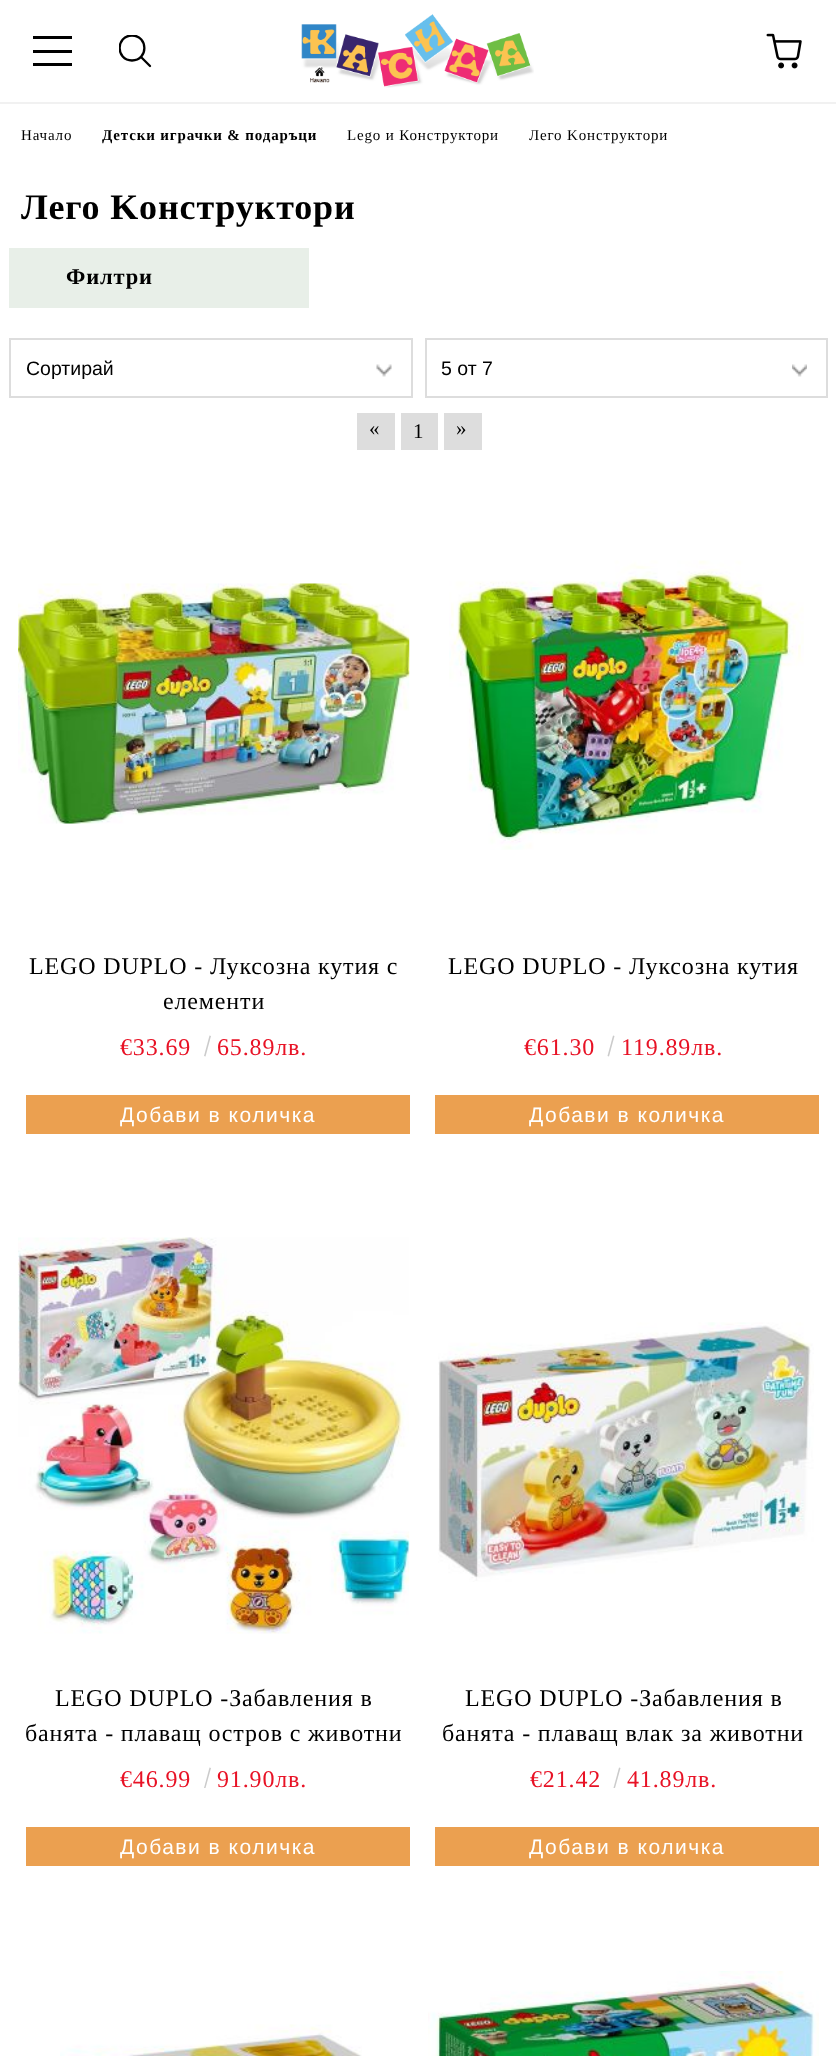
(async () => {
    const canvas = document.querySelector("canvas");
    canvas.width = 836;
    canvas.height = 2056;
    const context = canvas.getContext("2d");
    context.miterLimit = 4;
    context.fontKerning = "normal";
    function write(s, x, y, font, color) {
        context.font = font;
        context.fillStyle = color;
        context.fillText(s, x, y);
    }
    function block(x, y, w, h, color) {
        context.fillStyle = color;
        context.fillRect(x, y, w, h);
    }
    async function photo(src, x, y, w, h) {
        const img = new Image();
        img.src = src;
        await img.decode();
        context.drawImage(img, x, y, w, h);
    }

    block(0, 0, 836, 2056, "rgb(255, 255, 255)");
    block(0, 102, 836, 2, "rgb(241, 241, 241)");
    block(33, 36, 39, 3, "rgb(0, 0, 0)");
    block(33, 50, 39, 3, "rgb(0, 0, 0)");
    block(33, 63, 39, 3, "rgb(0, 0, 0)");
    context.save();
    context.beginPath();
    context.rect(119, 35, 33, 33);
    context.clip();
    context.beginPath();
    context.moveTo(132, 35.5);
    context.bezierCurveTo(115.5, 35.5, 115.5, 60.5, 132, 60.5);
    context.bezierCurveTo(148.5, 60.5, 148.5, 35.5, 132, 35.5);
    context.closePath();
    context.strokeStyle = "rgb(0, 0, 0)";
    context.lineWidth = 2.3;
    context.stroke();
    context.restore();
    context.beginPath();
    context.moveTo(141, 57);
    context.lineTo(150, 66);
    context.strokeStyle = "rgb(0, 0, 0)";
    context.lineWidth = 2.3;
    context.lineCap = "round";
    context.stroke();
    await photo("media/1.png", 301, 14, 233, 74);
    await photo("media/2.png", 766, 33, 36, 36);
    context.letterSpacing = "0.85px";
    write("Начало", 21, 140, "15px Liberation Serif", "rgb(0, 0, 0)");
    write("Детски играчки & подаръци", 102, 140, "bold 15px Liberation Serif", "rgb(0, 0, 0)");
    write("Lego и Конструктори", 347, 140, "15px Liberation Serif", "rgb(0, 0, 0)");
    write("Лего Kонструктори", 529, 140, "15px Liberation Serif", "rgb(0, 0, 0)");
    write("Лего Kонструктори", 21, 219, "bold 36px Liberation Serif", "rgb(0, 0, 0)");
    block(9, 248, 300, 60, "rgb(232, 239, 232)");
    write("Филтри", 66, 284, "bold 22.5px Liberation Serif", "rgb(0, 0, 0)");
    await photo("media/3.png", 376, 364, 16, 13);
    context.strokeStyle = "rgb(221, 221, 221)";
    context.lineWidth = 2;
    context.strokeRect(10, 339, 402, 58);
    context.letterSpacing = "0px";
    write("Сортирай", 26, 375, "19.5px Liberation Sans", "rgb(0, 0, 0)");
    await photo("media/4.png", 792, 364, 15, 13);
    context.strokeRect(426, 339, 401, 58);
    write("5 от 7", 441, 375, "19.5px Liberation Sans", "rgb(0, 0, 0)");
    block(357, 413, 38, 37, "rgb(221, 221, 221)");
    context.letterSpacing = "0.85px";
    write("«", 369, 435, "21px Liberation Serif", "rgb(0, 0, 0)");
    block(401, 413, 37, 37, "rgb(221, 221, 221)");
    write("1", 413, 438, "21px Liberation Serif", "rgb(0, 0, 0)");
    block(444, 413, 38, 37, "rgb(221, 221, 221)");
    write("»", 456, 435, "21px Liberation Serif", "rgb(0, 0, 0)");
    await photo("media/5.png", 18, 583, 392, 241);
    write("LEGO DUPLO - Луксозна кутия с", 29, 974, "24px Liberation Serif", "rgb(0, 0, 0)");
    write("елементи", 163, 1009, "24px Liberation Serif", "rgb(0, 0, 0)");
    write("€33.69", 120, 1055, "24px Liberation Serif", "rgb(232, 18, 37)");
    context.fillStyle = "rgb(203, 203, 203)";
    context.beginPath();
    context.moveTo(209.5, 1035.5);
    context.lineTo(211, 1036);
    context.lineTo(205.5, 1056.5);
    context.lineTo(204, 1056);
    context.closePath();
    context.fill();
    write("65.89лв.", 217, 1055, "24px Liberation Serif", "rgb(232, 18, 37)");
    block(26, 1095, 384, 39, "rgb(235, 160, 80)");
    context.letterSpacing = "1.5px";
    write("Добави в количка", 120, 1122, "21px Liberation Sans", "rgb(255, 255, 255)");
    await photo("media/6.png", 449, 560, 355, 290);
    context.letterSpacing = "0.85px";
    write("LEGO DUPLO - Луксозна кутия", 448, 974, "24px Liberation Serif", "rgb(0, 0, 0)");
    write("€61.30", 524, 1055, "24px Liberation Serif", "rgb(232, 18, 37)");
    context.fillStyle = "rgb(203, 203, 203)";
    context.beginPath();
    context.moveTo(613, 1035.5);
    context.lineTo(614.5, 1036);
    context.lineTo(609, 1056.5);
    context.lineTo(607.5, 1056);
    context.closePath();
    context.fill();
    write("119.89лв.", 621, 1055, "24px Liberation Serif", "rgb(232, 18, 37)");
    block(435, 1095, 384, 39, "rgb(235, 160, 80)");
    context.letterSpacing = "1.5px";
    write("Добави в количка", 529, 1122, "21px Liberation Sans", "rgb(255, 255, 255)");
    await photo("media/7.png", 18, 1237, 392, 397);
    context.letterSpacing = "0.85px";
    write("LEGO DUPLO -Забавления в", 55, 1706, "24px Liberation Serif", "rgb(0, 0, 0)");
    write("банята - плаващ остров с животни", 25, 1741, "24px Liberation Serif", "rgb(0, 0, 0)");
    write("€46.99", 120, 1787, "24px Liberation Serif", "rgb(232, 18, 37)");
    context.fillStyle = "rgb(203, 203, 203)";
    context.beginPath();
    context.moveTo(209.5, 1767.5);
    context.lineTo(211, 1768);
    context.lineTo(205.5, 1788);
    context.lineTo(204, 1788);
    context.closePath();
    context.fill();
    write("91.90лв.", 217, 1787, "24px Liberation Serif", "rgb(232, 18, 37)");
    block(26, 1827, 384, 39, "rgb(235, 160, 80)");
    context.letterSpacing = "1.5px";
    write("Добави в количка", 120, 1854, "21px Liberation Sans", "rgb(255, 255, 255)");
    await photo("media/8.png", 438, 1322, 376, 260);
    context.letterSpacing = "0.85px";
    write("LEGO DUPLO -Забавления в", 465, 1706, "24px Liberation Serif", "rgb(0, 0, 0)");
    write("банята - плаващ влак за животни", 442, 1741, "24px Liberation Serif", "rgb(0, 0, 0)");
    write("€21.42", 530, 1787, "24px Liberation Serif", "rgb(232, 18, 37)");
    context.fillStyle = "rgb(203, 203, 203)";
    context.beginPath();
    context.moveTo(619, 1767.5);
    context.lineTo(620.5, 1768);
    context.lineTo(615, 1788);
    context.lineTo(613.5, 1788);
    context.closePath();
    context.fill();
    write("41.89лв.", 627, 1787, "24px Liberation Serif", "rgb(232, 18, 37)");
    block(435, 1827, 384, 39, "rgb(235, 160, 80)");
    context.letterSpacing = "1.5px";
    write("Добави в количка", 529, 1854, "21px Liberation Sans", "rgb(255, 255, 255)");
    await photo("media/9.png", 60, 2024, 302, 32);
    await photo("media/10.png", 428, 1971, 391, 85);
})();
